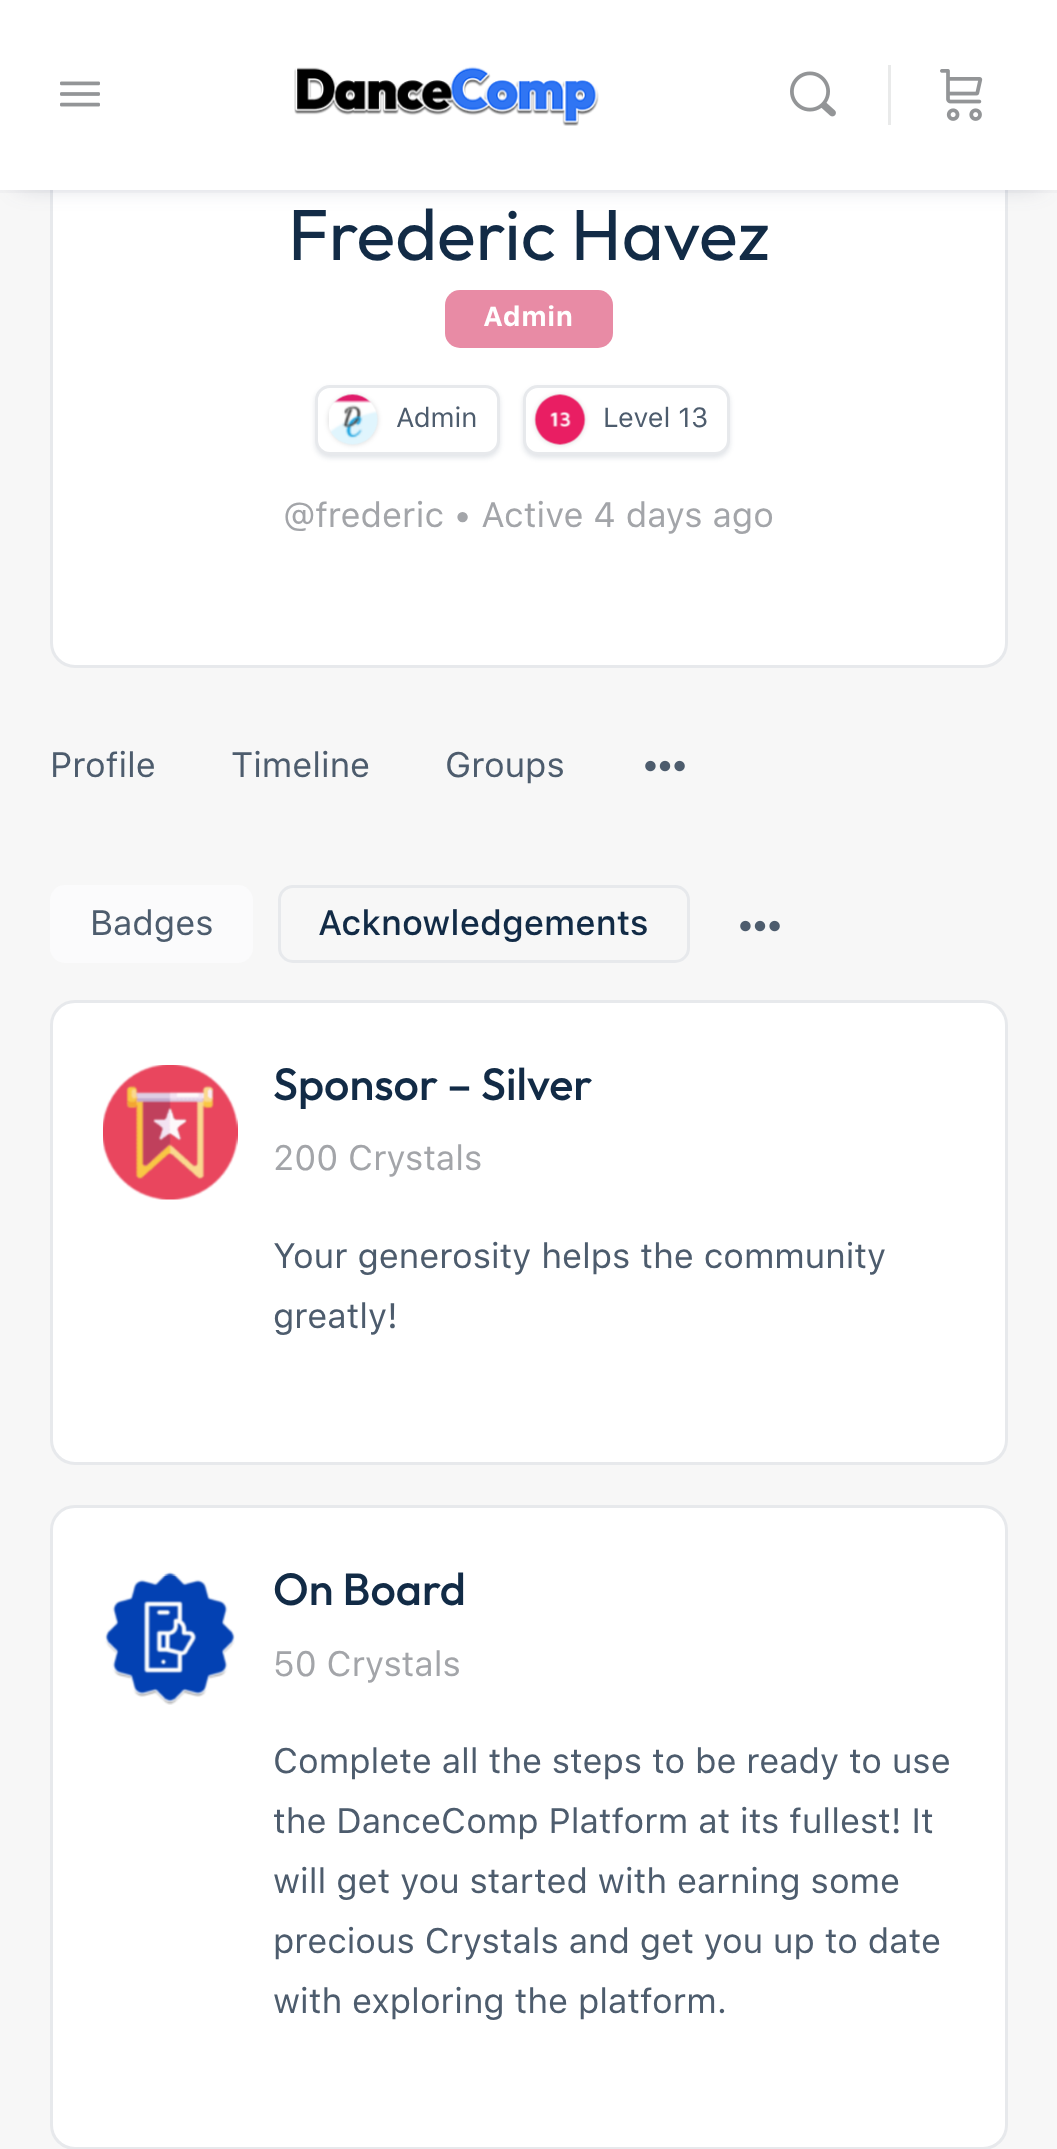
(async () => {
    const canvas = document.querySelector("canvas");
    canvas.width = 1057;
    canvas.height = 2149;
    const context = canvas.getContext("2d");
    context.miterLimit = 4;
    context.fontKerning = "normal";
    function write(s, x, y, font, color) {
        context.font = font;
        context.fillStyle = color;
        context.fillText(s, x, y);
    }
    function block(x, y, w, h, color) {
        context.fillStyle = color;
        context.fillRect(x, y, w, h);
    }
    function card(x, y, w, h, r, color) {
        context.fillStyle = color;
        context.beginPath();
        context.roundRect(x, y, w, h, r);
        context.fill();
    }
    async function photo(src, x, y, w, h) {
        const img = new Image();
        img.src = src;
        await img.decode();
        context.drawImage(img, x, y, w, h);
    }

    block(0, 0, 1057, 2149, "rgb(247, 247, 247)");
    context.fillStyle = "rgb(255, 255, 255)";
    context.beginPath();
    context.moveTo(51.5, -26.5);
    context.lineTo(1006.5, -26.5);
    context.lineTo(1006.5, 643);
    context.bezierCurveTo(1006.5, 656, 996, 666.5, 983, 666.5);
    context.lineTo(75, 666.5);
    context.bezierCurveTo(62, 666.5, 51.5, 656, 51.5, 643);
    context.closePath();
    context.fill();
    context.strokeStyle = "rgb(231, 233, 236)";
    context.lineWidth = 3;
    context.stroke();
    context.fillStyle = "rgba(65, 71, 108, 0.25)";
    context.filter = "blur(12.5px)";
    context.beginPath();
    context.rect(18, 30, 1022, 155);
    context.fill();
    context.filter = "none";
    context.fillStyle = "rgba(139, 141, 157, 0.05)";
    context.beginPath();
    context.moveTo(0, 190);
    context.lineTo(0, 193);
    context.lineTo(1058, 193);
    context.lineTo(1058, 3);
    context.lineTo(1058, 190);
    context.closePath();
    context.fill();
    block(0, 0, 1057, 190, "rgb(255, 255, 255)");
    await photo("media/1.png", 60, 81, 40, 26);
    await photo("media/2.png", 294, 66, 305, 60);
    await photo("media/3.png", 790, 71, 46, 46);
    block(888, 65, 3, 60, "rgb(233, 234, 234)");
    await photo("media/4.png", 940, 69, 43, 52);
    write("Frederic Havez", 288, 260, "72px Outfit", "rgb(18, 43, 70)");
    card(445, 290, 168, 58, 15, "rgb(232, 139, 165)");
    context.letterSpacing = "0.5px";
    write("Admin", 483, 326, "bold 27.5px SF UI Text", "rgb(255, 255, 255)");
    context.fillStyle = "rgba(18, 43, 70, 0.12)";
    context.filter = "blur(2.5px)";
    context.beginPath();
    context.roundRect(315, 388, 185, 70, 15);
    context.fill();
    context.filter = "none";
    context.fillStyle = "rgb(255, 255, 255)";
    context.beginPath();
    context.roundRect(316.5, 386.5, 182, 67, 13.5);
    context.fill();
    context.stroke();
    context.fillStyle = "rgba(0, 0, 0, 0.13)";
    context.filter = "blur(2.5px)";
    context.beginPath();
    context.roundRect(328, 395, 50, 50, 25);
    context.fill();
    context.filter = "none";
    await photo("media/5.png", 329, 394, 49, 51);
    context.letterSpacing = "0px";
    write("Admin", 396, 427, "27.5px SF UI Text", "rgb(77, 92, 109)");
    context.fillStyle = "rgba(18, 43, 70, 0.12)";
    context.filter = "blur(2.5px)";
    context.beginPath();
    context.roundRect(523, 388, 207, 70, 15);
    context.fill();
    context.filter = "none";
    context.fillStyle = "rgb(255, 255, 255)";
    context.beginPath();
    context.roundRect(524.5, 386.5, 204, 67, 13.5);
    context.fill();
    context.stroke();
    context.fillStyle = "rgba(0, 0, 0, 0.13)";
    context.filter = "blur(2.5px)";
    context.beginPath();
    context.roundRect(535, 395, 50, 50, 25);
    context.fill();
    context.filter = "none";
    await photo("media/6.png", 534, 394, 52, 51);
    write("Level 13", 603, 427, "27.5px SF UI Text", "rgb(77, 92, 109)");
    write("@frederic • Active 4 days ago", 283, 527, "35px SF UI Text", "rgb(163, 165, 169)");
    write("Profile", 50, 777, "35px SF UI Text", "rgb(77, 92, 109)");
    write("Timeline", 231, 777, "35px SF UI Text", "rgb(77, 92, 109)");
    write("Groups", 445, 777, "35px SF UI Text", "rgb(77, 92, 109)");
    await photo("media/7.png", 645, 760, 40, 12);
    card(50, 885, 203, 78, 15, "rgb(251, 251, 252)");
    write("Badges", 90, 935, "35px SF UI Text", "rgb(77, 92, 109)");
    context.beginPath();
    context.roundRect(279.5, 886.5, 409, 75, 13.5);
    context.stroke();
    write("Acknowledgements", 318, 935, "500 35px SF UI Text", "rgb(18, 43, 70)");
    await photo("media/7.png", 740, 920, 40, 12);
    context.fillStyle = "rgb(255, 255, 255)";
    context.beginPath();
    context.roundRect(51.5, 1001.5, 955, 462, 23.5);
    context.fill();
    context.stroke();
    await photo("media/8.png", 103, 1065, 135, 135);
    write("Sponsor – Silver", 273, 1100, "500 45px Outfit", "rgb(18, 43, 70)");
    write("200 Crystals", 273, 1170, "35px SF UI Text", "rgb(163, 165, 169)");
    write("Your generosity helps the community", 273, 1268, "35px SF UI Text", "rgb(77, 92, 109)");
    write("greatly!", 273, 1328, "35px SF UI Text", "rgb(77, 92, 109)");
    context.fillStyle = "rgb(255, 255, 255)";
    context.beginPath();
    context.roundRect(51.5, 1506.5, 955, 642, 23.5);
    context.fill();
    context.stroke();
    await photo("media/9.png", 104, 1571, 131, 134);
    write("On Board", 273, 1605, "500 45px Outfit", "rgb(18, 43, 70)");
    write("50 Crystals", 273, 1676, "35px SF UI Text", "rgb(163, 165, 169)");
    write("Complete all the steps to be ready to use", 273, 1773, "35px SF UI Text", "rgb(77, 92, 109)");
    write("the DanceComp Platform at its fullest! It", 273, 1833, "35px SF UI Text", "rgb(77, 92, 109)");
    write("will get you started with earning some", 273, 1893, "35px SF UI Text", "rgb(77, 92, 109)");
    write("precious Crystals and get you up to date", 273, 1953, "35px SF UI Text", "rgb(77, 92, 109)");
    write("with exploring the platform.", 273, 2013, "35px SF UI Text", "rgb(77, 92, 109)");
})();
